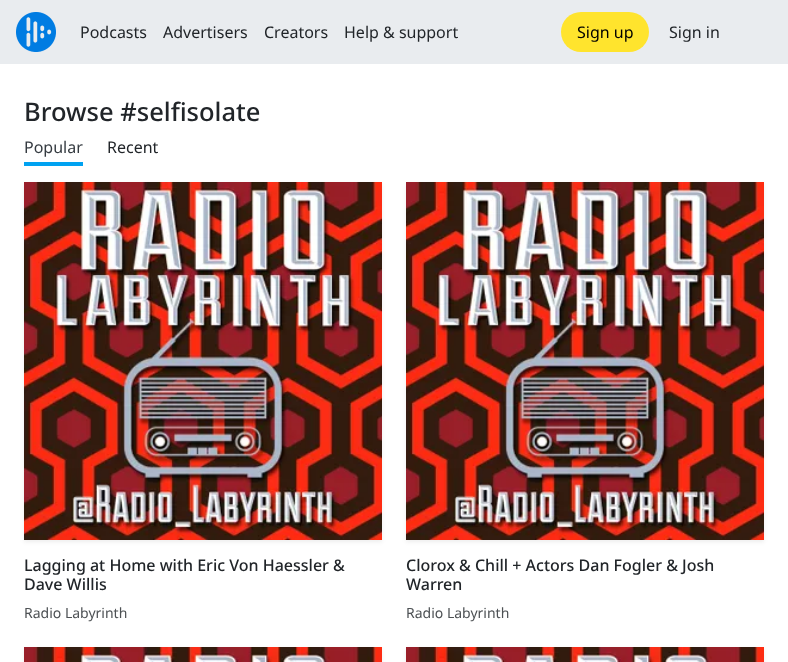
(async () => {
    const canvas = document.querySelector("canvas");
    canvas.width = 788;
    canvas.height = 662;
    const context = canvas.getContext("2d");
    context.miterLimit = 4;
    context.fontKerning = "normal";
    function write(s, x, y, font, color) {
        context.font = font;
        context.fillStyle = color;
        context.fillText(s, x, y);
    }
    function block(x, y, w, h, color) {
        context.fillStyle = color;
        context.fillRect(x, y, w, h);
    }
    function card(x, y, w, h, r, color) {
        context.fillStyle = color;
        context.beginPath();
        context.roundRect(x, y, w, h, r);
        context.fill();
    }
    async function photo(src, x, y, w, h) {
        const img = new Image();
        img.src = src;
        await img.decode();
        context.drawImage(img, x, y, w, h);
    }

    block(0, 0, 788, 662, "rgb(255, 255, 255)");
    block(0, 0, 788, 64, "rgb(233, 236, 239)");
    await photo("media/1.png", 16, 12, 40, 40);
    write("Podcasts", 80, 38, "16px Noto Sans", "rgb(33, 37, 41)");
    write("Advertisers", 163, 38, "16px Noto Sans", "rgb(33, 37, 41)");
    write("Creators", 264, 38, "16px Noto Sans", "rgb(33, 37, 41)");
    write("Help & support", 344, 38, "16px Noto Sans", "rgb(33, 37, 41)");
    card(561, 12, 88, 40, 20, "rgb(255, 228, 45)");
    write("Sign up", 577, 38, "16px Noto Sans", "rgb(0, 0, 0)");
    write("Sign in", 669, 38, "16px Noto Sans", "rgb(33, 37, 41)");
    write("Browse #selfisolate", 24, 121, "500 25.5px Noto Sans", "rgb(33, 37, 41)");
    block(24, 162, 59, 4, "rgb(0, 162, 241)");
    write("Popular", 24, 153, "16px Noto Sans", "rgb(52, 58, 64)");
    write("Recent", 107, 153, "16px Noto Sans", "rgb(33, 37, 41)");
    context.fillStyle = "rgba(0, 0, 0, 0.07)";
    context.filter = "blur(2px)";
    context.beginPath();
    context.rect(24, 184, 358, 358);
    context.fill();
    context.filter = "none";
    await photo("media/2.png", 24, 182, 358, 358);
    write("Lagging at Home with Eric Von Haessler &", 24, 571, "500 16px Noto Sans", "rgb(33, 37, 41)");
    write("Dave Willis", 24, 590, "500 16px Noto Sans", "rgb(33, 37, 41)");
    write("Radio Labyrinth", 24, 618, "14px Noto Sans", "rgb(77, 81, 84)");
    context.fillStyle = "rgba(0, 0, 0, 0.07)";
    context.filter = "blur(2px)";
    context.beginPath();
    context.rect(406, 184, 358, 358);
    context.fill();
    context.filter = "none";
    await photo("media/2.png", 406, 182, 358, 358);
    write("Clorox & Chill + Actors Dan Fogler & Josh", 406, 571, "500 16px Noto Sans", "rgb(33, 37, 41)");
    write("Warren", 406, 590, "500 16px Noto Sans", "rgb(33, 37, 41)");
    write("Radio Labyrinth", 406, 618, "14px Noto Sans", "rgb(77, 81, 84)");
    context.fillStyle = "rgba(0, 0, 0, 0.07)";
    context.filter = "blur(2px)";
    context.beginPath();
    context.rect(24, 649, 358, 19);
    context.fill();
    context.filter = "none";
    await photo("media/3.png", 24, 647, 358, 15);
    context.filter = "blur(2px)";
    context.beginPath();
    context.rect(406, 649, 358, 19);
    context.fill();
    context.filter = "none";
    await photo("media/3.png", 406, 647, 358, 15);
})();
